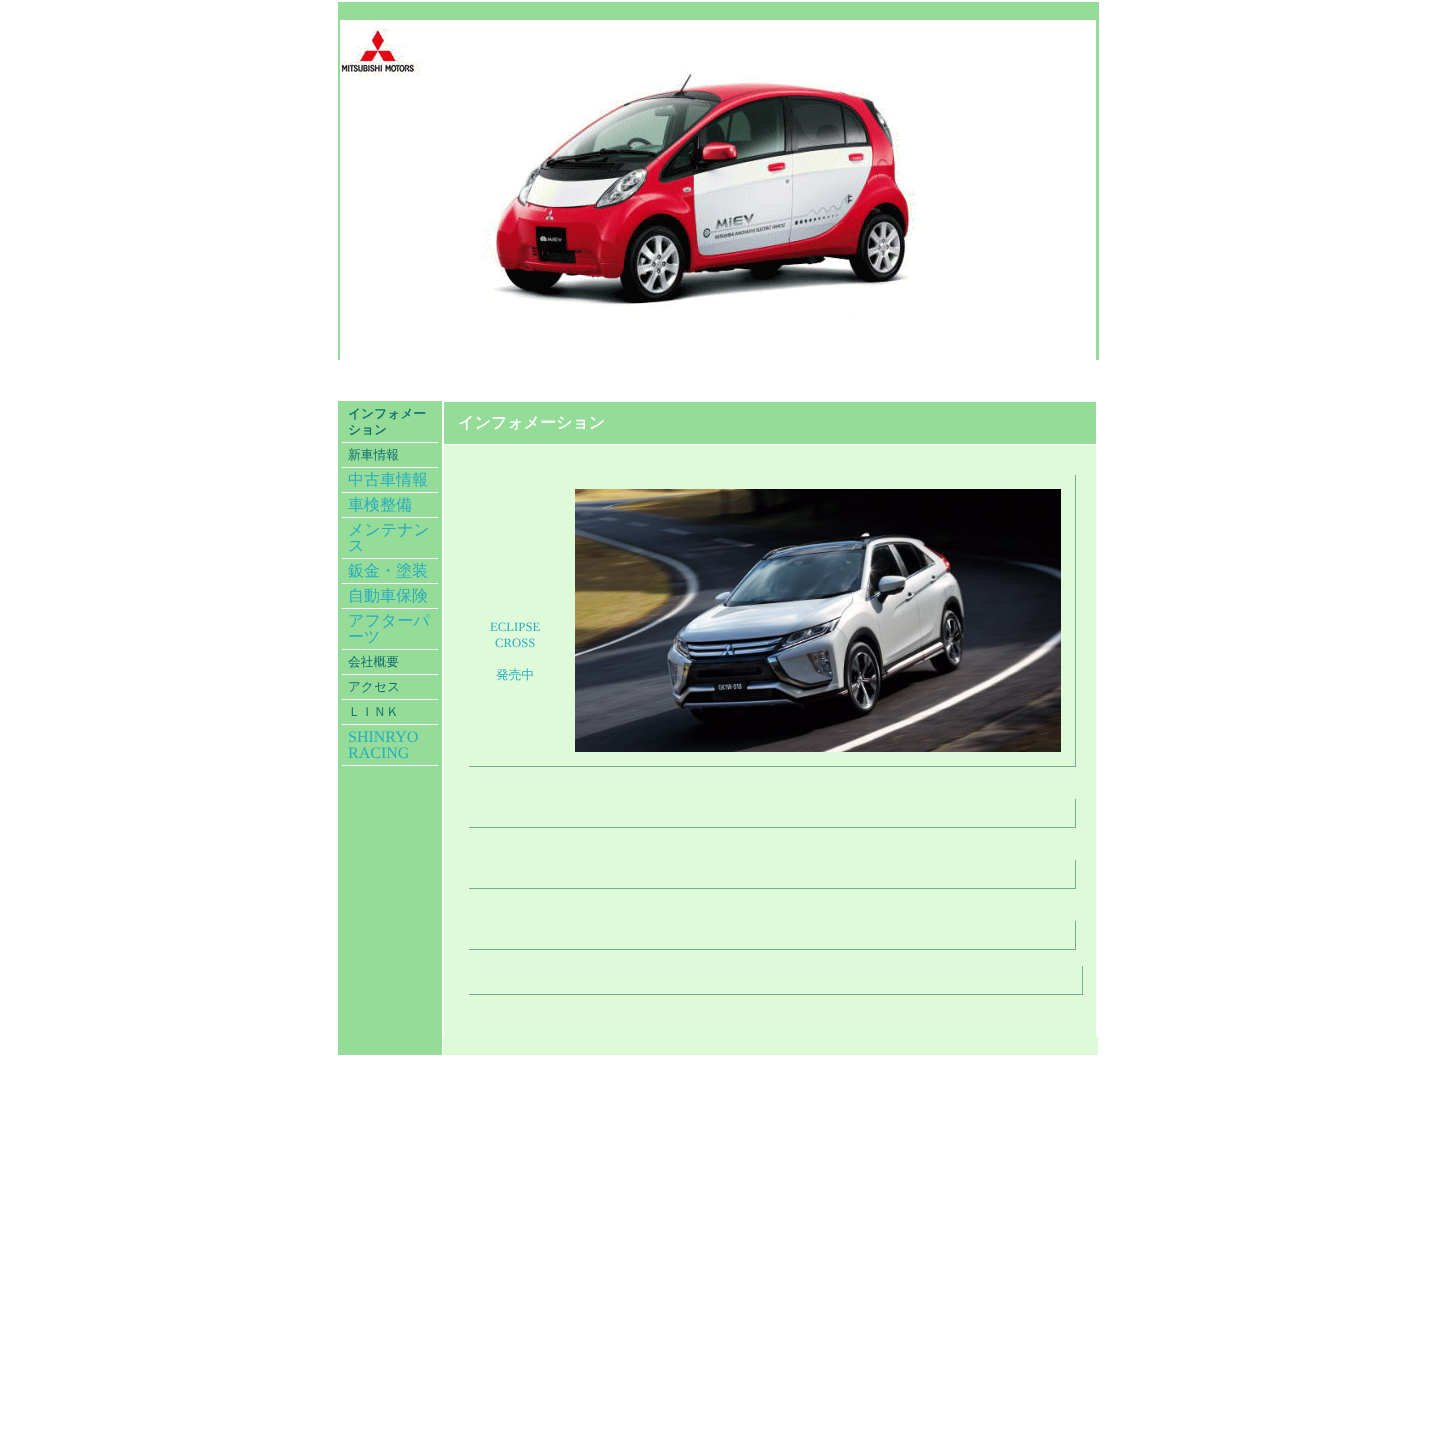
(async () => {
    const canvas = document.querySelector("canvas");
    canvas.width = 1436;
    canvas.height = 1430;
    const context = canvas.getContext("2d");
    context.miterLimit = 4;
    context.fontKerning = "normal";
    function write(s, x, y, font, color) {
        context.font = font;
        context.fillStyle = color;
        context.fillText(s, x, y);
    }
    function block(x, y, w, h, color) {
        context.fillStyle = color;
        context.fillRect(x, y, w, h);
    }
    async function photo(src, x, y, w, h) {
        const img = new Image();
        img.src = src;
        await img.decode();
        context.drawImage(img, x, y, w, h);
    }

    block(0, 0, 1436, 1430, "rgb(255, 255, 255)");
    block(338, 2, 761, 358, "rgb(148, 220, 151)");
    await photo("media/1.png", 340, 20, 756, 340);
    block(338, 401, 104, 654, "rgb(148, 220, 151)");
    block(342, 442, 96, 1, "rgb(255, 255, 255)");
    write("インフォメー", 348, 418, "bold 12.75px WenQuanYi Zen Hei", "rgb(19, 111, 111)");
    write("ション", 348, 434, "bold 12.75px WenQuanYi Zen Hei", "rgb(19, 111, 111)");
    block(342, 467, 96, 1, "rgb(255, 255, 255)");
    write("新車情報", 348, 459, "500 12.75px WenQuanYi Zen Hei", "rgb(19, 111, 111)");
    block(342, 492, 96, 1, "rgb(255, 255, 255)");
    write("中古車情報", 348, 485, "500 16px WenQuanYi Zen Hei", "rgb(39, 173, 192)");
    block(342, 517, 96, 1, "rgb(255, 255, 255)");
    write("車検整備", 348, 510, "500 16px WenQuanYi Zen Hei", "rgb(39, 173, 192)");
    block(342, 558, 96, 1, "rgb(255, 255, 255)");
    write("メンテナン", 348, 535, "500 16px WenQuanYi Zen Hei", "rgb(39, 173, 192)");
    write("ス", 348, 551, "500 16px WenQuanYi Zen Hei", "rgb(39, 173, 192)");
    block(342, 583, 96, 1, "rgb(255, 255, 255)");
    write("鈑金・塗装", 348, 576, "500 16px WenQuanYi Zen Hei", "rgb(39, 173, 192)");
    block(342, 608, 96, 1, "rgb(255, 255, 255)");
    write("自動車保険", 348, 601, "500 16px WenQuanYi Zen Hei", "rgb(39, 173, 192)");
    block(342, 649, 96, 1, "rgb(255, 255, 255)");
    write("アフターパ", 348, 626, "500 16px WenQuanYi Zen Hei", "rgb(39, 173, 192)");
    write("ーツ", 348, 642, "500 16px WenQuanYi Zen Hei", "rgb(39, 173, 192)");
    block(342, 674, 96, 1, "rgb(255, 255, 255)");
    write("会社概要", 348, 666, "500 12.75px WenQuanYi Zen Hei", "rgb(19, 111, 111)");
    block(342, 699, 96, 1, "rgb(255, 255, 255)");
    write("アクセス", 348, 691, "500 12.75px WenQuanYi Zen Hei", "rgb(19, 111, 111)");
    block(342, 724, 96, 1, "rgb(255, 255, 255)");
    write("ＬＩＮＫ", 348, 716, "500 12.75px WenQuanYi Zen Hei", "rgb(19, 111, 111)");
    block(342, 765, 96, 1, "rgb(255, 255, 255)");
    write("SHINRYO", 348, 742, "16px Liberation Serif", "rgb(39, 173, 192)");
    write("RACING", 348, 758, "16px Liberation Serif", "rgb(39, 173, 192)");
    block(444, 402, 652, 42, "rgb(148, 220, 151)");
    write("インフォメーション", 458, 428, "bold 16px WenQuanYi Zen Hei", "rgb(255, 255, 255)");
    block(444, 445, 652, 592, "rgb(222, 250, 216)");
    block(469, 766, 92, 1, "rgb(116, 171, 153)");
    write("ECLIPSE", 490, 631, "12.75px Liberation Serif", "rgb(39, 173, 192)");
    write("CROSS", 495, 647, "12.75px Liberation Serif", "rgb(39, 173, 192)");
    write("発売中", 496, 679, "500 12.75px WenQuanYi Zen Hei", "rgb(39, 173, 192)");
    block(1075, 475, 1, 292, "rgb(116, 171, 153)");
    block(561, 766, 515, 1, "rgb(116, 171, 153)");
    await photo("media/2.png", 575, 489, 486, 263);
    block(469, 827, 187, 1, "rgb(116, 171, 153)");
    block(1075, 799, 1, 29, "rgb(116, 171, 153)");
    block(656, 827, 420, 1, "rgb(116, 171, 153)");
    block(469, 888, 187, 1, "rgb(116, 171, 153)");
    block(1075, 860, 1, 29, "rgb(116, 171, 153)");
    block(656, 888, 420, 1, "rgb(116, 171, 153)");
    block(469, 949, 187, 1, "rgb(116, 171, 153)");
    block(1075, 921, 1, 29, "rgb(116, 171, 153)");
    block(656, 949, 420, 1, "rgb(116, 171, 153)");
    block(469, 994, 186, 1, "rgb(116, 171, 153)");
    block(1082, 966, 1, 29, "rgb(116, 171, 153)");
    block(655, 994, 428, 1, "rgb(116, 171, 153)");
    block(443, 1037, 655, 18, "rgb(222, 250, 216)");
})();
